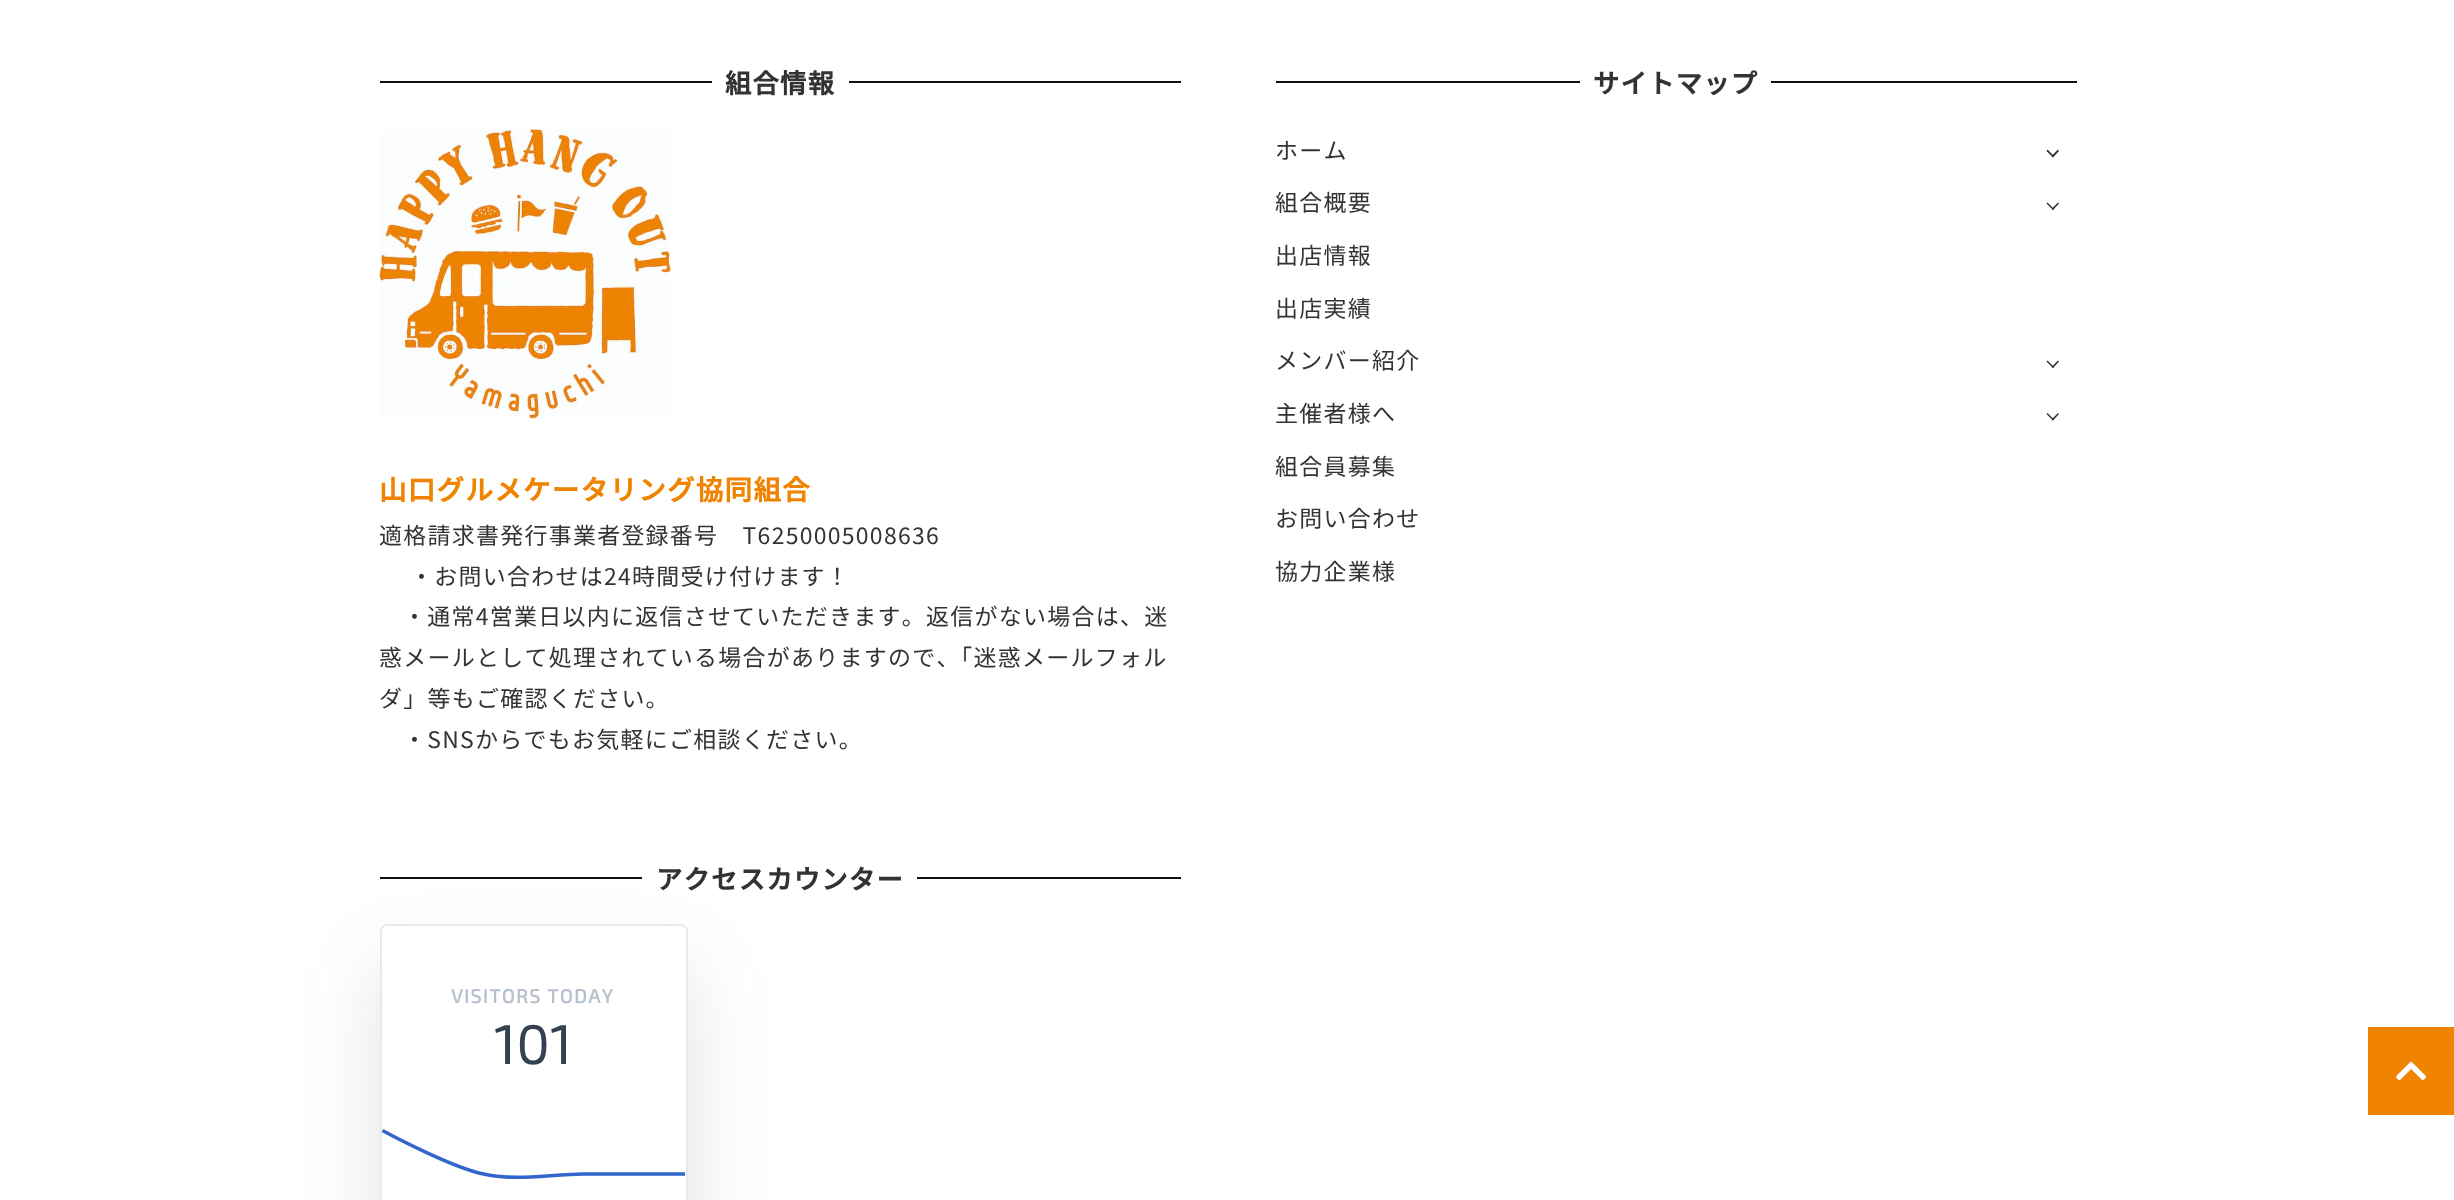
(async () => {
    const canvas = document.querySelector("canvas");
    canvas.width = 2454;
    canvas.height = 1200;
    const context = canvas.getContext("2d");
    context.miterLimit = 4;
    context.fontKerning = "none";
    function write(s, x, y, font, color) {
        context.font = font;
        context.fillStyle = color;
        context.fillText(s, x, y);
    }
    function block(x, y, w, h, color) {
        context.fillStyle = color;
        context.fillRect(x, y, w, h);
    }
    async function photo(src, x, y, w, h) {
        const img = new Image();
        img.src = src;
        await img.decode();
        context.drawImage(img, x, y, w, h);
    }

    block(0, 0, 2454, 1200, "rgb(255, 255, 255)");
    block(380, 81, 332, 2, "rgb(17, 17, 17)");
    context.letterSpacing = "1.3px";
    write("組合情報", 725, 93, "bold 26.25px Noto Sans JP", "rgb(51, 51, 51)");
    block(849, 81, 332, 2, "rgb(17, 17, 17)");
    await photo("media/1.png", 379, 129, 292, 290);
    write("山口グルメケータリング協同組合", 379, 500, "bold 27.5px Noto Sans JP", "rgb(240, 131, 0)");
    write("適格請求書発行事業者登録番号　T6250005008636", 379, 544, "22.95px Noto Sans JP", "rgb(51, 51, 51)");
    write("・お問い合わせは24時間受け付けます！", 410, 585, "22.95px Noto Sans JP", "rgb(51, 51, 51)");
    write("・通常4営業日以内に返信させていただきます。返信がない場合は、迷", 403, 625, "22.95px Noto Sans JP", "rgb(51, 51, 51)");
    write("惑メールとして処理されている場合がありますので、「迷惑メールフォル", 379, 666, "22.95px Noto Sans JP", "rgb(51, 51, 51)");
    write("ダ」等もご確認ください。", 379, 707, "22.95px Noto Sans JP", "rgb(51, 51, 51)");
    write("・SNSからでもお気軽にご相談ください。", 403, 748, "22.95px Noto Sans JP", "rgb(51, 51, 51)");
    block(1276, 81, 304, 2, "rgb(17, 17, 17)");
    write("サイトマップ", 1593, 93, "bold 26.25px Noto Sans JP", "rgb(51, 51, 51)");
    block(1771, 81, 306, 2, "rgb(17, 17, 17)");
    write("ホーム", 1275, 159, "22.95px Noto Sans JP", "rgb(51, 51, 51)");
    context.beginPath();
    context.moveTo(2059, 151);
    context.lineTo(2053, 157.5);
    context.lineTo(2051.5, 156);
    context.lineTo(2058, 149.5);
    context.closePath();
    context.fill();
    context.beginPath();
    context.moveTo(2054, 156);
    context.lineTo(2053, 157.5);
    context.lineTo(2046.5, 151);
    context.lineTo(2047.5, 149.5);
    context.closePath();
    context.fill();
    write("組合概要", 1275, 211, "22.95px Noto Sans JP", "rgb(51, 51, 51)");
    context.beginPath();
    context.moveTo(2059, 203.5);
    context.lineTo(2053, 210);
    context.lineTo(2051.5, 209);
    context.lineTo(2058, 202.5);
    context.closePath();
    context.fill();
    context.beginPath();
    context.moveTo(2054, 209);
    context.lineTo(2053, 210);
    context.lineTo(2046.5, 203.5);
    context.lineTo(2047.5, 202.5);
    context.closePath();
    context.fill();
    write("出店情報", 1275, 264, "22.95px Noto Sans JP", "rgb(51, 51, 51)");
    write("出店実績", 1275, 317, "22.95px Noto Sans JP", "rgb(51, 51, 51)");
    write("メンバー紹介", 1275, 369, "22.95px Noto Sans JP", "rgb(51, 51, 51)");
    context.beginPath();
    context.moveTo(2059, 361.5);
    context.lineTo(2053, 368);
    context.lineTo(2051.5, 367);
    context.lineTo(2058, 360.5);
    context.closePath();
    context.fill();
    context.beginPath();
    context.moveTo(2054, 367);
    context.lineTo(2053, 368);
    context.lineTo(2046.5, 361.5);
    context.lineTo(2047.5, 360.5);
    context.closePath();
    context.fill();
    write("主催者様へ", 1275, 422, "22.95px Noto Sans JP", "rgb(51, 51, 51)");
    context.beginPath();
    context.moveTo(2059, 414);
    context.lineTo(2053, 420.5);
    context.lineTo(2051.5, 419.5);
    context.lineTo(2058, 413);
    context.closePath();
    context.fill();
    context.beginPath();
    context.moveTo(2054, 419.5);
    context.lineTo(2053, 420.5);
    context.lineTo(2046.5, 414);
    context.lineTo(2047.5, 413);
    context.closePath();
    context.fill();
    write("組合員募集", 1275, 475, "22.95px Noto Sans JP", "rgb(51, 51, 51)");
    write("お問い合わせ", 1275, 527, "22.95px Noto Sans JP", "rgb(51, 51, 51)");
    write("協力企業様", 1275, 580, "22.95px Noto Sans JP", "rgb(51, 51, 51)");
    block(380, 877, 262, 2, "rgb(17, 17, 17)");
    write("アクセスカウンター", 656, 889, "bold 26.25px Noto Sans JP", "rgb(51, 51, 51)");
    block(917, 877, 264, 2, "rgb(17, 17, 17)");
    context.fillStyle = "rgba(51, 59, 69, 0.15)";
    context.filter = "blur(40px)";
    context.beginPath();
    context.roundRect(380, 968, 308, 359, 7);
    context.fill();
    context.filter = "none";
    context.fillStyle = "rgb(255, 255, 255)";
    context.beginPath();
    context.roundRect(381, 925, 306, 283, 6);
    context.fill();
    context.strokeStyle = "rgb(230, 234, 238)";
    context.lineWidth = 2;
    context.stroke();
    context.letterSpacing = "1.4px";
    write("VISITORS TODAY", 451, 1003, "bold 19.25px 'Exo 2'", "rgb(183, 192, 205)");
    context.letterSpacing = "0px";
    write("101", 494, 1064, "56px 'Exo 2'", "rgb(53, 64, 82)");
    context.beginPath();
    context.moveTo(382.5, 1130.5);
    context.bezierCurveTo(382.5, 1130.5, 449.5, 1167, 483.5, 1174);
    context.bezierCurveTo(517, 1181.5, 550.5, 1174, 584, 1174);
    context.lineTo(685, 1174);
    context.strokeStyle = "rgb(51, 102, 204)";
    context.lineWidth = 3.5;
    context.stroke();
    block(2368, 1027, 86, 88, "rgb(240, 131, 0)");
    await photo("media/2.png", 2396, 1062, 30, 18);
})();
